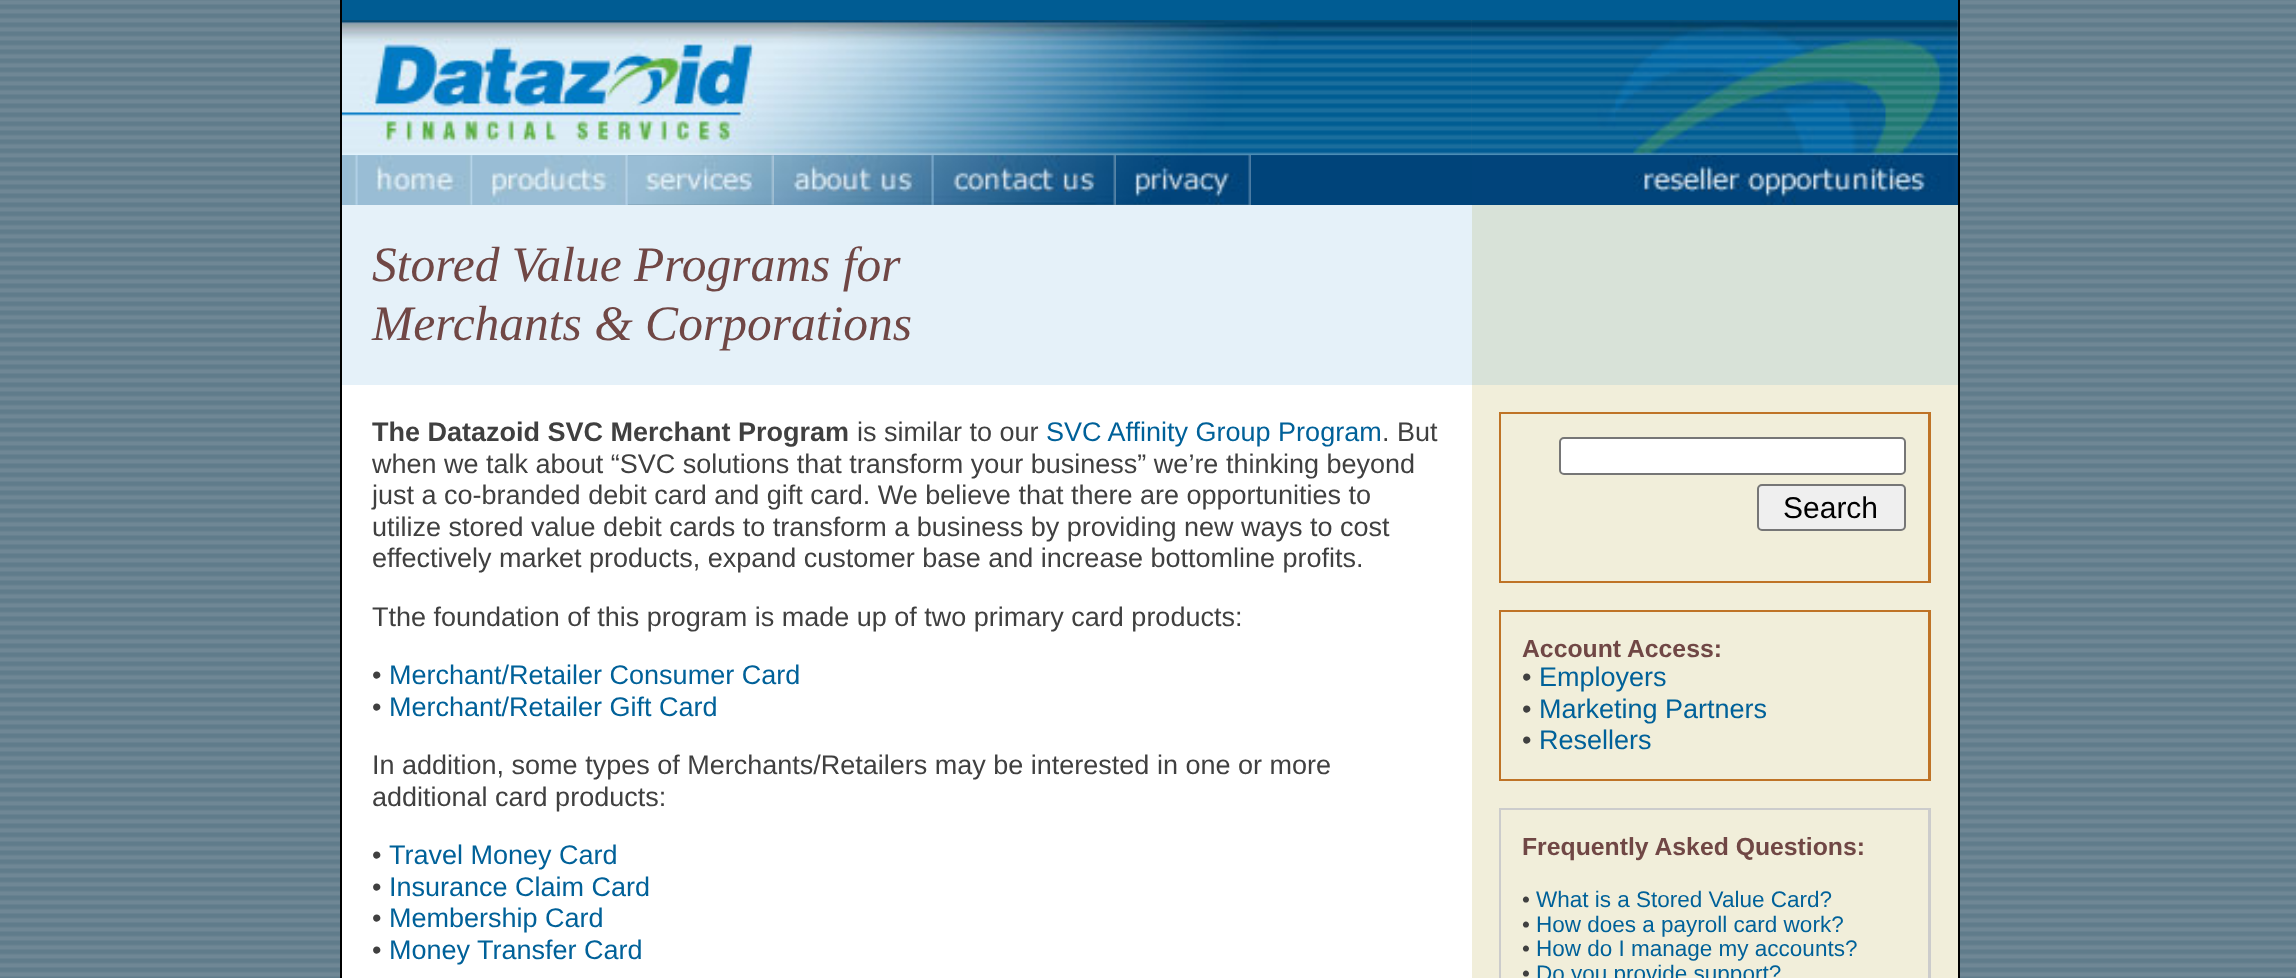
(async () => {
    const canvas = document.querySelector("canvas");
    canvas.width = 2296;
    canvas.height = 978;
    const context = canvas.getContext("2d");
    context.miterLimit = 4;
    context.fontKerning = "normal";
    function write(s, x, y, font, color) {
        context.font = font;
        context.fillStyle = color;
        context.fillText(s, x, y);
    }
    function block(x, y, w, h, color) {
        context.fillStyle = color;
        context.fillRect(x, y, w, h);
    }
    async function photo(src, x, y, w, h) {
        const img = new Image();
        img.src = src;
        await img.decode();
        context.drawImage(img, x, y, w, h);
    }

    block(0, 0, 2296, 978, "rgb(255, 255, 255)");
    await photo("media/1.png", 0, 0, 2296, 978);
    block(340, 0, 2, 978, "rgb(0, 0, 0)");
    block(342, 0, 1616, 20, "rgb(0, 92, 147)");
    block(1958, 0, 2, 978, "rgb(0, 0, 0)");
    await photo("media/2.png", 342, 20, 1130, 136);
    await photo("media/4.png", 1471, 20, 487, 135);
    block(342, 155, 286, 50, "rgb(153, 190, 212)");
    block(774, 155, 160, 50, "rgb(98, 147, 180)");
    block(1251, 155, 707, 50, "rgb(0, 68, 122)");
    await photo("media/3.png", 342, 20, 1130, 136);
    await photo("media/5.png", 1471, 20, 487, 136);
    await photo("media/6.png", 342, 155, 16, 50);
    await photo("media/7.png", 357, 155, 116, 50);
    await photo("media/8.png", 472, 155, 156, 50);
    await photo("media/9.png", 627, 155, 147, 50);
    await photo("media/10.png", 774, 155, 160, 50);
    await photo("media/11.png", 933, 155, 183, 50);
    await photo("media/12.png", 1116, 155, 135, 50);
    await photo("media/13.png", 1251, 155, 221, 1);
    await photo("media/14.png", 1471, 155, 486, 50);
    block(342, 205, 1130, 180, "rgb(229, 241, 249)");
    write("Stored Value Programs for", 372, 281, "italic 49.5px Liberation Serif", "rgb(112, 71, 69)");
    write("Merchants & Corporations", 372, 340, "italic 49.5px Liberation Serif", "rgb(112, 71, 69)");
    block(1472, 205, 486, 180, "rgb(216, 226, 216)");
    block(342, 385, 1130, 593, "rgb(255, 255, 255)");
    write("The Datazoid SVC Merchant Program", 372, 441, "bold 27px Liberation Sans", "rgb(64, 64, 64)");
    write("is similar to our", 857, 441, "27px Liberation Sans", "rgb(64, 64, 64)");
    write("SVC Affinity Group Program", 1046, 441, "27px Liberation Sans", "rgb(0, 97, 153)");
    write(". But", 1382, 441, "27px Liberation Sans", "rgb(64, 64, 64)");
    write("when we talk about “SVC solutions that transform your business” we’re thinking beyond", 372, 473, "27px Liberation Sans", "rgb(64, 64, 64)");
    write("just a co-branded debit card and gift card. We believe that there are opportunities to", 372, 504, "27px Liberation Sans", "rgb(64, 64, 64)");
    write("utilize stored value debit cards to transform a business by providing new ways to cost", 372, 536, "27px Liberation Sans", "rgb(64, 64, 64)");
    write("effectively market products, expand customer base and increase bottomline profits.", 372, 567, "27px Liberation Sans", "rgb(64, 64, 64)");
    write("Tthe foundation of this program is made up of two primary card products:", 372, 626, "27px Liberation Sans", "rgb(64, 64, 64)");
    write("•", 372, 684, "27px Liberation Sans", "rgb(64, 64, 64)");
    write("Merchant/Retailer Consumer Card", 389, 684, "27px Liberation Sans", "rgb(0, 97, 153)");
    write("•", 372, 716, "27px Liberation Sans", "rgb(64, 64, 64)");
    write("Merchant/Retailer Gift Card", 389, 716, "27px Liberation Sans", "rgb(0, 97, 153)");
    write("In addition, some types of Merchants/Retailers may be interested in one or more", 372, 774, "27px Liberation Sans", "rgb(64, 64, 64)");
    write("additional card products:", 372, 806, "27px Liberation Sans", "rgb(64, 64, 64)");
    write("•", 372, 864, "27px Liberation Sans", "rgb(64, 64, 64)");
    write("Travel Money Card", 389, 864, "27px Liberation Sans", "rgb(0, 97, 153)");
    write("•", 372, 896, "27px Liberation Sans", "rgb(64, 64, 64)");
    write("Insurance Claim Card", 389, 896, "27px Liberation Sans", "rgb(0, 97, 153)");
    write("•", 372, 927, "27px Liberation Sans", "rgb(64, 64, 64)");
    write("Membership Card", 389, 927, "27px Liberation Sans", "rgb(0, 97, 153)");
    write("•", 372, 959, "27px Liberation Sans", "rgb(64, 64, 64)");
    write("Money Transfer Card", 389, 959, "27px Liberation Sans", "rgb(0, 97, 153)");
    block(1472, 385, 486, 593, "rgb(241, 238, 218)");
    block(1499, 412, 432, 171, "rgb(191, 115, 38)");
    block(1501, 414, 427, 167, "rgb(241, 238, 218)");
    context.fillStyle = "rgb(255, 255, 255)";
    context.beginPath();
    context.roundRect(1560, 438, 345, 36, 4);
    context.fill();
    context.strokeStyle = "rgb(118, 118, 118)";
    context.lineWidth = 2;
    context.stroke();
    context.fillStyle = "rgb(239, 239, 239)";
    context.beginPath();
    context.roundRect(1758, 485, 147, 45, 4);
    context.fill();
    context.stroke();
    write("Search", 1783, 518, "30px Liberation Sans", "rgb(0, 0, 0)");
    block(1499, 610, 432, 171, "rgb(191, 115, 38)");
    block(1501, 612, 427, 167, "rgb(241, 238, 218)");
    write("Account Access:", 1522, 657, "bold 24.75px Liberation Sans", "rgb(112, 71, 69)");
    write("•", 1522, 686, "27px Liberation Sans", "rgb(64, 64, 64)");
    write("Employers", 1539, 686, "27px Liberation Sans", "rgb(0, 97, 153)");
    write("•", 1522, 718, "27px Liberation Sans", "rgb(64, 64, 64)");
    write("Marketing Partners", 1539, 718, "27px Liberation Sans", "rgb(0, 97, 153)");
    write("•", 1522, 749, "27px Liberation Sans", "rgb(64, 64, 64)");
    write("Resellers", 1539, 749, "27px Liberation Sans", "rgb(0, 97, 153)");
    block(1499, 808, 432, 170, "rgb(204, 204, 204)");
    block(1501, 810, 427, 168, "rgb(241, 238, 218)");
    write("Frequently Asked Questions:", 1522, 855, "bold 24.75px Liberation Sans", "rgb(112, 71, 69)");
    write("•", 1522, 907, "22.5px Liberation Sans", "rgb(64, 64, 64)");
    write("What is a Stored Value Card?", 1536, 907, "22.5px Liberation Sans", "rgb(0, 97, 153)");
    write("•", 1522, 932, "22.5px Liberation Sans", "rgb(64, 64, 64)");
    write("How does a payroll card work?", 1536, 932, "22.5px Liberation Sans", "rgb(0, 97, 153)");
    write("•", 1522, 956, "22.5px Liberation Sans", "rgb(64, 64, 64)");
    write("How do I manage my accounts?", 1536, 956, "22.5px Liberation Sans", "rgb(0, 97, 153)");
    write("•", 1522, 981, "22.5px Liberation Sans", "rgb(64, 64, 64)");
    write("Do you provide support?", 1536, 981, "22.5px Liberation Sans", "rgb(0, 97, 153)");
})();
